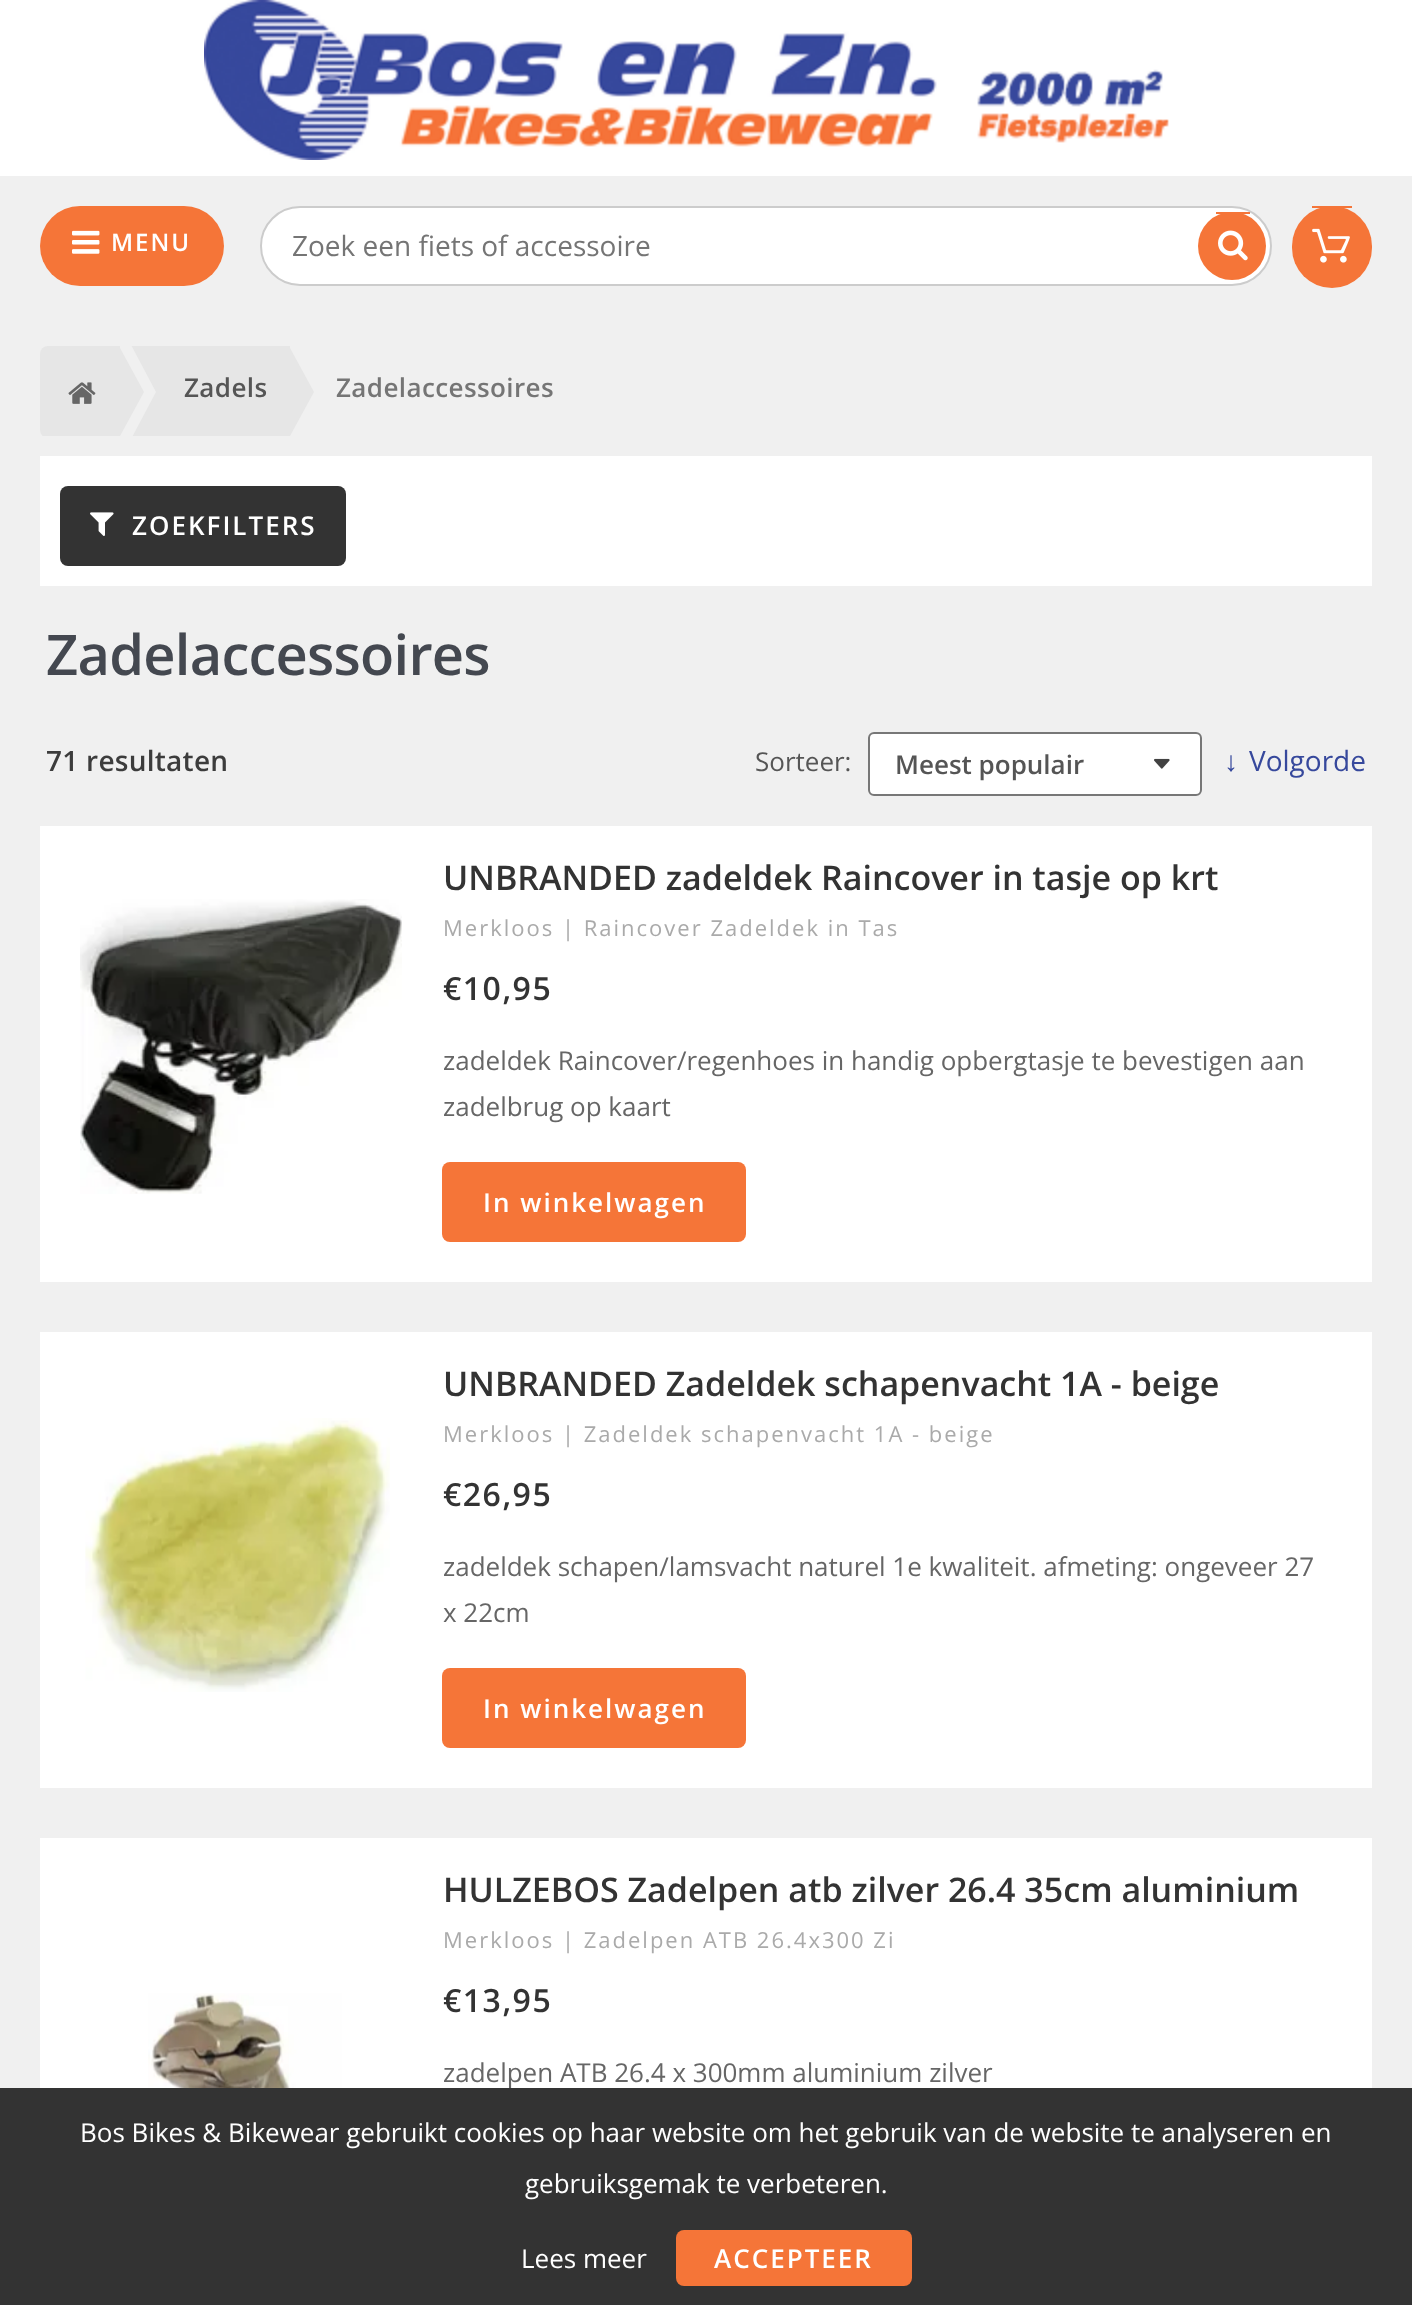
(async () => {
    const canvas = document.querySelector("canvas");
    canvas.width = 1412;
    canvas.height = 2305;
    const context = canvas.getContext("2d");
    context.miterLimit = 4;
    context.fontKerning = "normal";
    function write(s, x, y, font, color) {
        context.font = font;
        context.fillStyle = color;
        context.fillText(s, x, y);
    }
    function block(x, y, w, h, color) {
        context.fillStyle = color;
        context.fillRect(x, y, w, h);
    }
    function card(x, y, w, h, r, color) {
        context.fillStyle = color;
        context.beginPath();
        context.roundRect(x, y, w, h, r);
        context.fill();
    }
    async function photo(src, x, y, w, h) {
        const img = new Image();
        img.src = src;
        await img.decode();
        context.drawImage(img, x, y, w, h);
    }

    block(0, 0, 1412, 2305, "rgb(240, 240, 240)");
    block(0, 0, 1412, 176, "rgb(255, 255, 255)");
    await photo("media/1.png", 204, 0, 965, 160);
    card(40, 206, 184, 80, 40, "rgb(245, 117, 56)");
    await photo("media/2.png", 72, 230, 28, 24);
    context.letterSpacing = "2px";
    write("MENU", 111, 251, "600 24px Open Sans", "rgb(255, 255, 255)");
    context.beginPath();
    context.roundRect(261, 207, 1010, 78, 39);
    context.fill();
    context.strokeStyle = "rgb(204, 204, 204)";
    context.lineWidth = 2;
    context.stroke();
    context.letterSpacing = "0px";
    write("Zoek een fiets of accessoire", 292, 256, "28px Open Sans", "rgb(117, 117, 117)");
    context.fillStyle = "rgb(245, 117, 56)";
    context.beginPath();
    context.arc(1232, 246, 34, 0, Math.PI * 2);
    context.fill();
    block(1216, 212, 34, 2, "rgb(245, 117, 56)");
    await photo("media/3.png", 1218, 230, 30, 31);
    card(1292, 206, 80, 82, 40, "rgb(245, 117, 56)");
    block(1312, 206, 40, 2, "rgb(245, 117, 56)");
    await photo("media/4.png", 1312, 228, 38, 35);
    context.save();
    context.beginPath();
    context.rect(40, 346, 1332, 90);
    context.clip();
    context.fillStyle = "rgb(230, 230, 230)";
    context.beginPath();
    context.roundRect(40, 346, 80, 92, [8, 0, 0, 8]);
    context.fill();
    context.restore();
    block(131, 346, 159, 90, "rgb(230, 230, 230)");
    context.save();
    context.beginPath();
    context.rect(40, 346, 1332, 90);
    context.clip();
    context.fillStyle = "rgb(240, 240, 240)";
    context.beginPath();
    context.moveTo(120, 460);
    context.lineTo(120, 324);
    context.lineTo(156, 392);
    context.closePath();
    context.fill();
    context.restore();
    context.beginPath();
    context.moveTo(120, 436);
    context.lineTo(120, 348);
    context.lineTo(144, 392);
    context.closePath();
    context.fill();
    context.letterSpacing = "0.4px";
    write("Zadels", 184, 397, "600 26px Open Sans", "rgb(85, 85, 85)");
    context.fillStyle = "rgb(230, 230, 230)";
    context.beginPath();
    context.moveTo(290, 436);
    context.lineTo(290, 348);
    context.lineTo(314, 392);
    context.closePath();
    context.fill();
    write("Zadelaccessoires", 336, 397, "600 26px Open Sans", "rgb(117, 117, 117)");
    await photo("media/5.png", 68, 382, 28, 22);
    block(40, 456, 1332, 130, "rgb(255, 255, 255)");
    card(60, 486, 286, 80, 8, "rgb(51, 51, 51)");
    await photo("media/6.png", 90, 512, 24, 24);
    context.letterSpacing = "2px";
    write("ZOEKFILTERS", 132, 535, "600 26px Open Sans", "rgb(255, 255, 255)");
    context.letterSpacing = "-0.75px";
    write("Zadelaccessoires", 46, 675, "600 56px Open Sans", "rgb(68, 72, 80)");
    context.letterSpacing = "0.25px";
    write("71 resultaten", 46, 771, "600 28px Open Sans", "rgb(60, 60, 60)");
    context.letterSpacing = "0px";
    write("Sorteer:", 755, 771, "26px Open Sans", "rgb(85, 85, 85)");
    card(868, 732, 334, 64, 6, "rgb(255, 255, 255)");
    await photo("media/7.png", 1154, 758, 16, 11);
    context.beginPath();
    context.roundRect(869, 733, 332, 62, 5);
    context.strokeStyle = "rgb(119, 119, 119)";
    context.stroke();
    write("Meest populair", 895, 774, "600 26px Open Sans", "rgb(85, 85, 85)");
    write("↓", 1224, 771, "bold 28px Liberation Sans", "rgb(54, 72, 156)");
    write("Volgorde", 1249, 771, "28px Open Sans", "rgb(54, 72, 156)");
    block(40, 826, 1332, 456, "rgb(255, 255, 255)");
    await photo("media/8.png", 80, 899, 322, 295);
    write("UNBRANDED zadeldek Raincover in tasje op krt", 443, 890, "600 34px Open Sans", "rgb(51, 51, 51)");
    context.letterSpacing = "2px";
    write("Merkloos | Raincover Zadeldek in Tas", 443, 936, "22px Open Sans", "rgb(170, 170, 170)");
    context.letterSpacing = "1.5px";
    write("€10,95", 443, 1000, "600 32px Open Sans", "rgb(51, 51, 51)");
    context.letterSpacing = "0px";
    write("zadeldek Raincover/regenhoes in handig opbergtasje te bevestigen aan", 443, 1070, "26px Open Sans", "rgb(102, 102, 102)");
    write("zadelbrug op kaart", 443, 1116, "26px Open Sans", "rgb(102, 102, 102)");
    card(442, 1162, 304, 80, 8, "rgb(245, 117, 56)");
    context.letterSpacing = "2px";
    write("In winkelwagen", 483, 1212, "600 26px Open Sans", "rgb(255, 255, 255)");
    block(40, 1332, 1332, 456, "rgb(255, 255, 255)");
    await photo("media/9.png", 85, 1418, 305, 274);
    context.letterSpacing = "0px";
    write("UNBRANDED Zadeldek schapenvacht 1A - beige", 443, 1396, "600 34px Open Sans", "rgb(51, 51, 51)");
    context.letterSpacing = "2px";
    write("Merkloos | Zadeldek schapenvacht 1A - beige", 443, 1442, "22px Open Sans", "rgb(170, 170, 170)");
    context.letterSpacing = "1.5px";
    write("€26,95", 443, 1506, "600 32px Open Sans", "rgb(51, 51, 51)");
    context.letterSpacing = "0px";
    write("zadeldek schapen/lamsvacht naturel 1e kwaliteit. afmeting: ongeveer 27", 443, 1576, "26px Open Sans", "rgb(102, 102, 102)");
    write("x 22cm", 443, 1622, "26px Open Sans", "rgb(102, 102, 102)");
    card(442, 1668, 304, 80, 8, "rgb(245, 117, 56)");
    context.letterSpacing = "2px";
    write("In winkelwagen", 483, 1718, "600 26px Open Sans", "rgb(255, 255, 255)");
    block(40, 1838, 1332, 250, "rgb(255, 255, 255)");
    await photo("media/10.png", 148, 1993, 194, 95);
    context.letterSpacing = "0px";
    write("HULZEBOS Zadelpen atb zilver 26.4 35cm aluminium", 443, 1902, "600 34px Open Sans", "rgb(51, 51, 51)");
    context.letterSpacing = "2px";
    write("Merkloos | Zadelpen ATB 26.4x300 Zi", 443, 1948, "22px Open Sans", "rgb(170, 170, 170)");
    context.letterSpacing = "1.5px";
    write("€13,95", 443, 2012, "600 32px Open Sans", "rgb(51, 51, 51)");
    context.letterSpacing = "0px";
    write("zadelpen ATB 26.4 x 300mm aluminium zilver", 443, 2082, "26px Open Sans", "rgb(102, 102, 102)");
    block(0, 2088, 1412, 217, "rgb(51, 51, 51)");
    write("Bos Bikes & Bikewear gebruikt cookies op haar website om het gebruik van de website te analyseren en", 80, 2142, "26px Open Sans", "rgb(255, 255, 255)");
    write("gebruiksgemak te verbeteren.", 525, 2193, "26px Open Sans", "rgb(255, 255, 255)");
    write("Lees meer", 521, 2268, "26px Open Sans", "rgb(255, 255, 255)");
    card(676, 2230, 236, 56, 8, "rgb(245, 117, 56)");
    context.letterSpacing = "2px";
    write("ACCEPTEER", 714, 2268, "600 26px Open Sans", "rgb(255, 255, 255)");
})();
